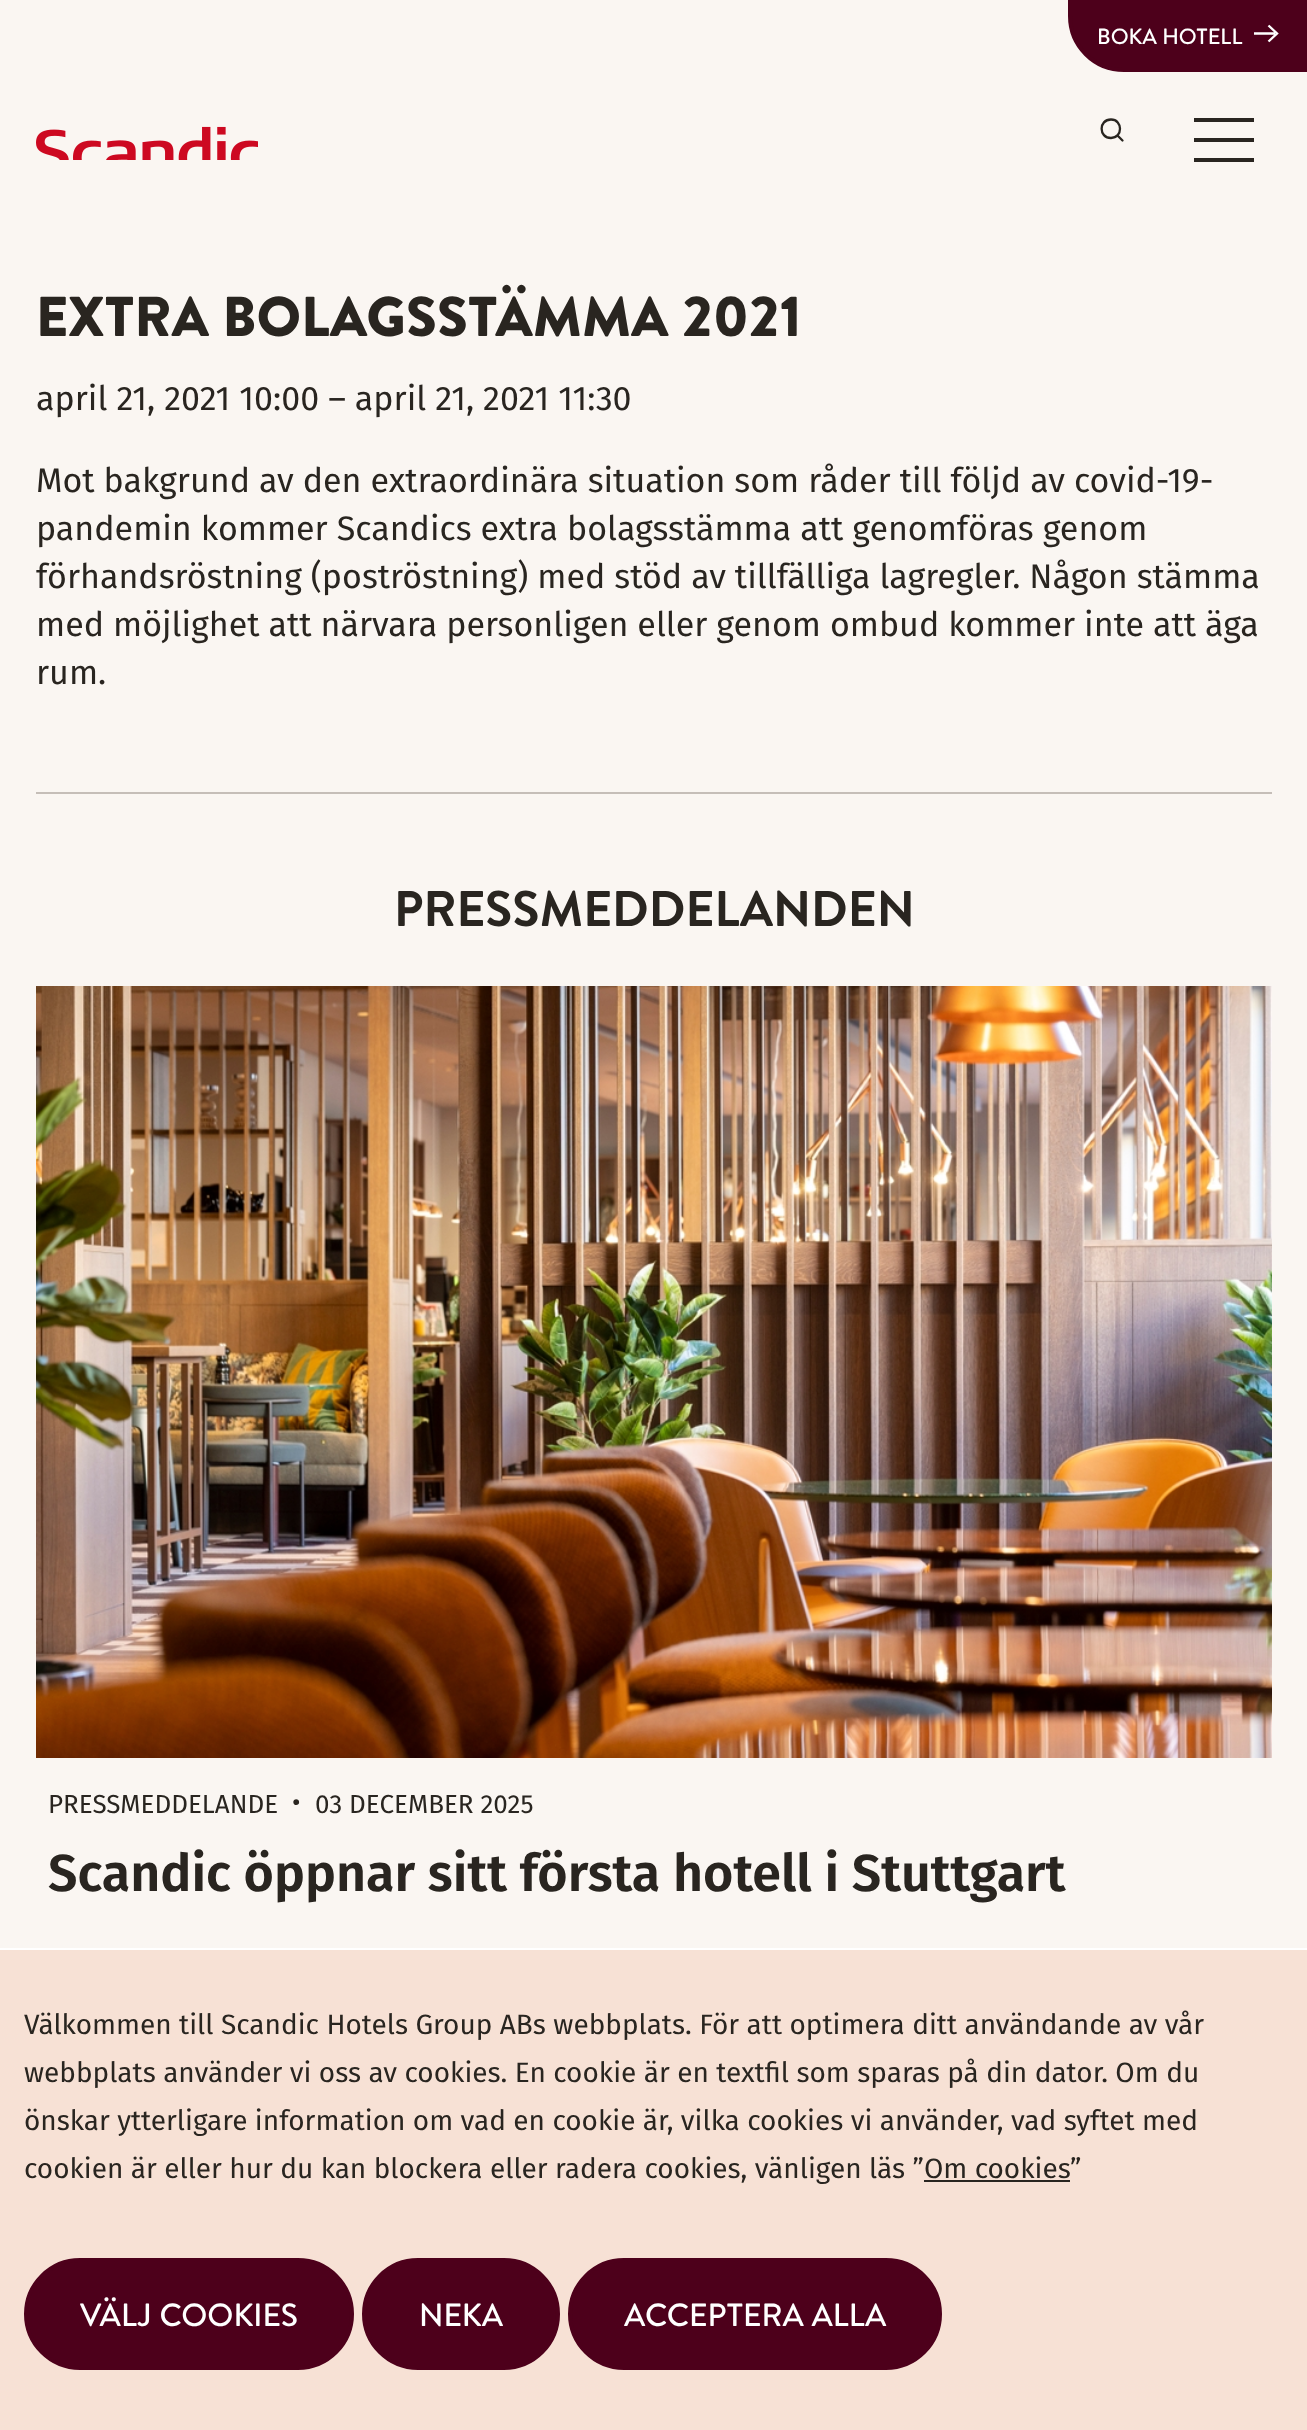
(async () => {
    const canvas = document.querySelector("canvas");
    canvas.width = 1307;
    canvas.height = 2430;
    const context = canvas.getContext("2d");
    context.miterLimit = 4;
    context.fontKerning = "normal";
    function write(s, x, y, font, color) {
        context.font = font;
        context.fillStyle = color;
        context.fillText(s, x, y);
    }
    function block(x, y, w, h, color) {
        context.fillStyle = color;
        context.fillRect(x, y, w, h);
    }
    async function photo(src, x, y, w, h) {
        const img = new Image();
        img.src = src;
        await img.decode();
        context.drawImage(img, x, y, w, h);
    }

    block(0, 0, 1307, 2430, "rgb(250, 246, 242)");
    context.fillStyle = "rgb(77, 0, 27)";
    context.beginPath();
    context.moveTo(1070, 2);
    context.lineTo(1306, 2);
    context.lineTo(1306, 70);
    context.lineTo(1124, 70);
    context.bezierCurveTo(1094, 70, 1070, 46, 1070, 16);
    context.closePath();
    context.fill();
    context.strokeStyle = "rgb(77, 0, 27)";
    context.lineWidth = 4;
    context.stroke();
    write("BOKA HOTELL", 1097, 44, "500 22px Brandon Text", "rgb(255, 255, 255)");
    context.beginPath();
    context.moveTo(1268.5, 25.5);
    context.lineTo(1277, 33.5);
    context.lineTo(1268.5, 41.5);
    context.moveTo(1254, 33.5);
    context.lineTo(1275, 33.5);
    context.strokeStyle = "rgb(255, 255, 255)";
    context.lineWidth = 2.4;
    context.stroke();
    await photo("media/1.png", 36, 126, 222, 34);
    context.beginPath();
    context.moveTo(1111, 138);
    context.bezierCurveTo(1123, 138, 1123, 119.5, 1111, 119.5);
    context.bezierCurveTo(1098.5, 119.5, 1098.5, 138, 1111, 138);
    context.closePath();
    context.moveTo(1122.5, 140.5);
    context.lineTo(1117.5, 135.5);
    context.strokeStyle = "rgb(41, 37, 32)";
    context.lineWidth = 2.3;
    context.lineCap = "round";
    context.lineJoin = "round";
    context.stroke();
    block(1194, 118, 60, 4, "rgb(41, 37, 32)");
    block(1194, 158, 60, 4, "rgb(41, 37, 32)");
    block(1194, 138, 60, 4, "rgb(41, 37, 32)");
    write("EXTRA BOLAGSSTÄMMA 2021", 36, 336, "900 56px Brandon Text", "rgb(41, 37, 32)");
    write("april 21, 2021 10:00 – april 21, 2021 11:30", 36, 410, "34px Fira Sans", "rgb(41, 37, 32)");
    write("Mot bakgrund av den extraordinära situation som råder till följd av covid-19-", 36, 492, "34px Fira Sans", "rgb(41, 37, 32)");
    write("pandemin kommer Scandics extra bolagsstämma att genomföras genom", 36, 540, "34px Fira Sans", "rgb(41, 37, 32)");
    write("förhandsröstning (poströstning) med stöd av tillfälliga lagregler. Någon stämma", 36, 588, "34px Fira Sans", "rgb(41, 37, 32)");
    write("med möjlighet att närvara personligen eller genom ombud kommer inte att äga", 36, 636, "34px Fira Sans", "rgb(41, 37, 32)");
    write("rum.", 36, 684, "34px Fira Sans", "rgb(41, 37, 32)");
    block(36, 792, 1236, 2, "rgb(197, 190, 184)");
    write("PRESSMEDDELANDEN", 394, 926, "bold 50px Brandon Text", "rgb(41, 37, 32)");
    await photo("media/2.png", 36, 986, 1236, 772);
    write("PRESSMEDDELANDE", 48, 1813, "26px Fira Sans", "rgb(41, 37, 32)");
    write("•", 292, 1811, "26px Fira Sans", "rgb(41, 37, 32)");
    write("03 DECEMBER 2025", 315, 1813, "26px Fira Sans", "rgb(41, 37, 32)");
    write("Scandic öppnar sitt första hotell i Stuttgart", 48, 1891, "600 52px Fira Sans", "rgb(41, 37, 32)");
    block(0, 1950, 1307, 480, "rgb(247, 225, 213)");
    block(0, 1948, 1307, 2, "rgb(255, 255, 255)");
    write("Välkommen till Scandic Hotels Group ABs webbplats. För att optimera ditt användande av vår", 24, 2034, "28px Fira Sans", "rgb(41, 37, 32)");
    write("webbplats använder vi oss av cookies. En cookie är en textfil som sparas på din dator. Om du", 24, 2082, "28px Fira Sans", "rgb(41, 37, 32)");
    write("önskar ytterligare information om vad en cookie är, vilka cookies vi använder, vad syftet med", 24, 2130, "28px Fira Sans", "rgb(41, 37, 32)");
    write("cookien är eller hur du kan blockera eller radera cookies, vänligen läs ”Om cookies", 24, 2178, "28px Fira Sans", "rgb(41, 37, 32)");
    write("”", 1070, 2178, "28px Fira Sans", "rgb(41, 37, 32)");
    block(924, 2180, 146, 2, "rgb(41, 37, 32)");
    context.fillStyle = "rgb(77, 0, 27)";
    context.beginPath();
    context.roundRect(26, 2260, 326, 108, 54);
    context.fill();
    context.strokeStyle = "rgb(77, 0, 27)";
    context.lineWidth = 4;
    context.lineJoin = "miter";
    context.stroke();
    write("VÄLJ COOKIES", 80, 2326, "500 32px Brandon Text", "rgb(255, 255, 255)");
    context.fillStyle = "rgb(77, 0, 27)";
    context.beginPath();
    context.roundRect(364, 2260, 194, 108, 54);
    context.fill();
    context.stroke();
    write("NEKA", 419, 2326, "500 32px Brandon Text", "rgb(255, 255, 255)");
    context.fillStyle = "rgb(77, 0, 27)";
    context.beginPath();
    context.roundRect(570, 2260, 370, 108, 54);
    context.fill();
    context.stroke();
    write("ACCEPTERA ALLA", 624, 2326, "500 32px Brandon Text", "rgb(255, 255, 255)");
})();
